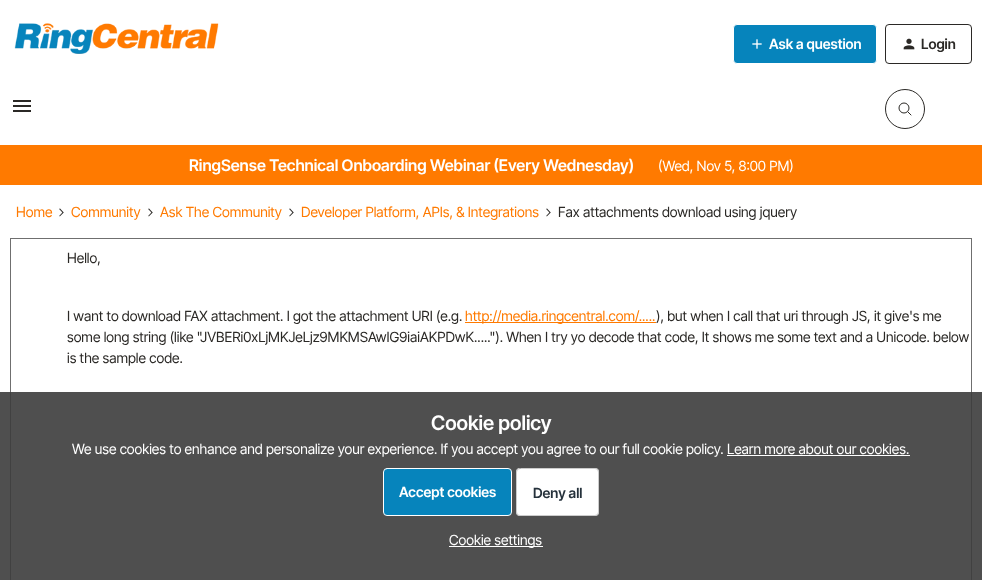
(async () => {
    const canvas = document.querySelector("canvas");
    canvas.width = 982;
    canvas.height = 580;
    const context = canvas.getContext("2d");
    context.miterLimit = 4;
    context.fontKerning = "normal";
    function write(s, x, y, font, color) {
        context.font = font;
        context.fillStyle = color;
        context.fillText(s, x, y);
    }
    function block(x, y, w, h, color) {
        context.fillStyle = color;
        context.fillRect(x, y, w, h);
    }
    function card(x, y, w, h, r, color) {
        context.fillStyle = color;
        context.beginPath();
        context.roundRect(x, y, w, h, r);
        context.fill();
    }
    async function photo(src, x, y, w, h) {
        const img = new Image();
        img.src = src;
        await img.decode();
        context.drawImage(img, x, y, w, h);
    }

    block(0, 0, 982, 580, "rgb(255, 255, 255)");
    await photo("media/1.png", 14, 23, 205, 31);
    context.fillStyle = "rgb(6, 132, 188)";
    context.beginPath();
    context.roundRect(733.5, 24.5, 143, 39, 3.5);
    context.fill();
    context.strokeStyle = "rgb(255, 255, 255)";
    context.stroke();
    await photo("media/2.png", 752, 39, 10, 10);
    write("Ask a question", 769, 49, "600 14px 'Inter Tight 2'", "rgb(255, 255, 255)");
    context.beginPath();
    context.roundRect(885.5, 24.5, 86, 39, 3.5);
    context.strokeStyle = "rgb(43, 41, 38)";
    context.stroke();
    await photo("media/3.png", 903, 38, 12, 12);
    write("Login", 921, 49, "600 14px 'Inter Tight 2'", "rgb(43, 41, 38)");
    await photo("media/4.png", 13, 100, 18, 12);
    context.beginPath();
    context.arc(905, 109, 19.5, 0, Math.PI * 2);
    context.stroke();
    context.beginPath();
    context.arc(904, 108, 5, 0, Math.PI * 2);
    context.stroke();
    context.beginPath();
    context.moveTo(908, 112);
    context.lineTo(911, 115);
    context.lineCap = "round";
    context.stroke();
    block(0, 145, 982, 40, "rgb(255, 122, 0)");
    write("RingSense Technical Onboarding Webinar (Every Wednesday)", 189, 171, "600 16px Inter Tight", "rgb(255, 255, 255)");
    write("(Wed, Nov 5, 8:00 PM)", 658, 171, "14px Inter Tight", "rgb(255, 255, 255)");
    write("Home", 16, 217, "14px Inter Tight", "rgb(255, 122, 0)");
    await photo("media/5.png", 59, 208, 5, 9);
    write("Community", 71, 217, "14px Inter Tight", "rgb(255, 122, 0)");
    await photo("media/5.png", 148, 208, 5, 9);
    write("Ask The Community", 160, 217, "14px Inter Tight", "rgb(255, 122, 0)");
    await photo("media/5.png", 289, 208, 5, 9);
    write("Developer Platform, APIs, & Integrations", 301, 217, "14px Inter Tight", "rgb(255, 122, 0)");
    await photo("media/5.png", 546, 208, 5, 9);
    write("Fax attachments download using jquery", 558, 217, "14px Inter Tight", "rgb(43, 41, 38)");
    context.strokeStyle = "rgb(111, 111, 111)";
    context.strokeRect(10.5, 238.5, 961, 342);
    write("Hello,", 67, 263, "14px Inter Tight", "rgb(43, 41, 38)");
    write("I want to download FAX attachment. I got the attachment URI (e.g.", 67, 321, "14px Inter Tight", "rgb(43, 41, 38)");
    block(465, 322, 191, 1, "rgb(255, 122, 0)");
    write("http://media.ringcentral.com/.....", 465, 321, "14px Inter Tight", "rgb(255, 122, 0)");
    write("), but when I call that uri through JS, it give's me", 656, 321, "14px Inter Tight", "rgb(43, 41, 38)");
    write("some long string (like \"JVBERi0xLjMKJeLjz9MKMSAwIG9iaiAKPDwK.....\"). When I try yo decode that code, It shows me some text and a Unicode. below", 67, 342, "14px Inter Tight", "rgb(43, 41, 38)");
    write("is the sample code.", 67, 363, "14px Inter Tight", "rgb(43, 41, 38)");
    block(0, 392, 982, 188, "rgba(60, 60, 60, 0.9)");
    write("Cookie policy", 431, 430, "600 20px Inter Tight", "rgb(255, 255, 255)");
    write("We use cookies to enhance and personalize your experience. If you accept you agree to our full cookie policy. Learn more about our cookies.", 72, 454, "14px Inter Tight", "rgb(255, 255, 255)");
    block(727, 455, 183, 1, "rgb(255, 255, 255)");
    context.fillStyle = "rgb(6, 132, 188)";
    context.beginPath();
    context.roundRect(383.5, 468.5, 128, 47, 3.5);
    context.fill();
    context.strokeStyle = "rgb(255, 255, 255)";
    context.stroke();
    write("Accept cookies", 399, 497, "600 14px 'Inter Tight 2'", "rgb(255, 255, 255)");
    card(516, 468, 83, 48, 4, "rgb(255, 255, 255)");
    context.beginPath();
    context.roundRect(516.5, 468.5, 82, 47, 3.5);
    context.strokeStyle = "rgba(0, 0, 0, 0.2)";
    context.stroke();
    write("Deny all", 533, 498, "600 14px 'Inter Tight 2'", "rgb(37, 49, 59)");
    block(449, 546, 94, 1, "rgb(255, 255, 255)");
    write("Cookie settings", 449, 545, "14px Inter Tight", "rgb(255, 255, 255)");
})();
